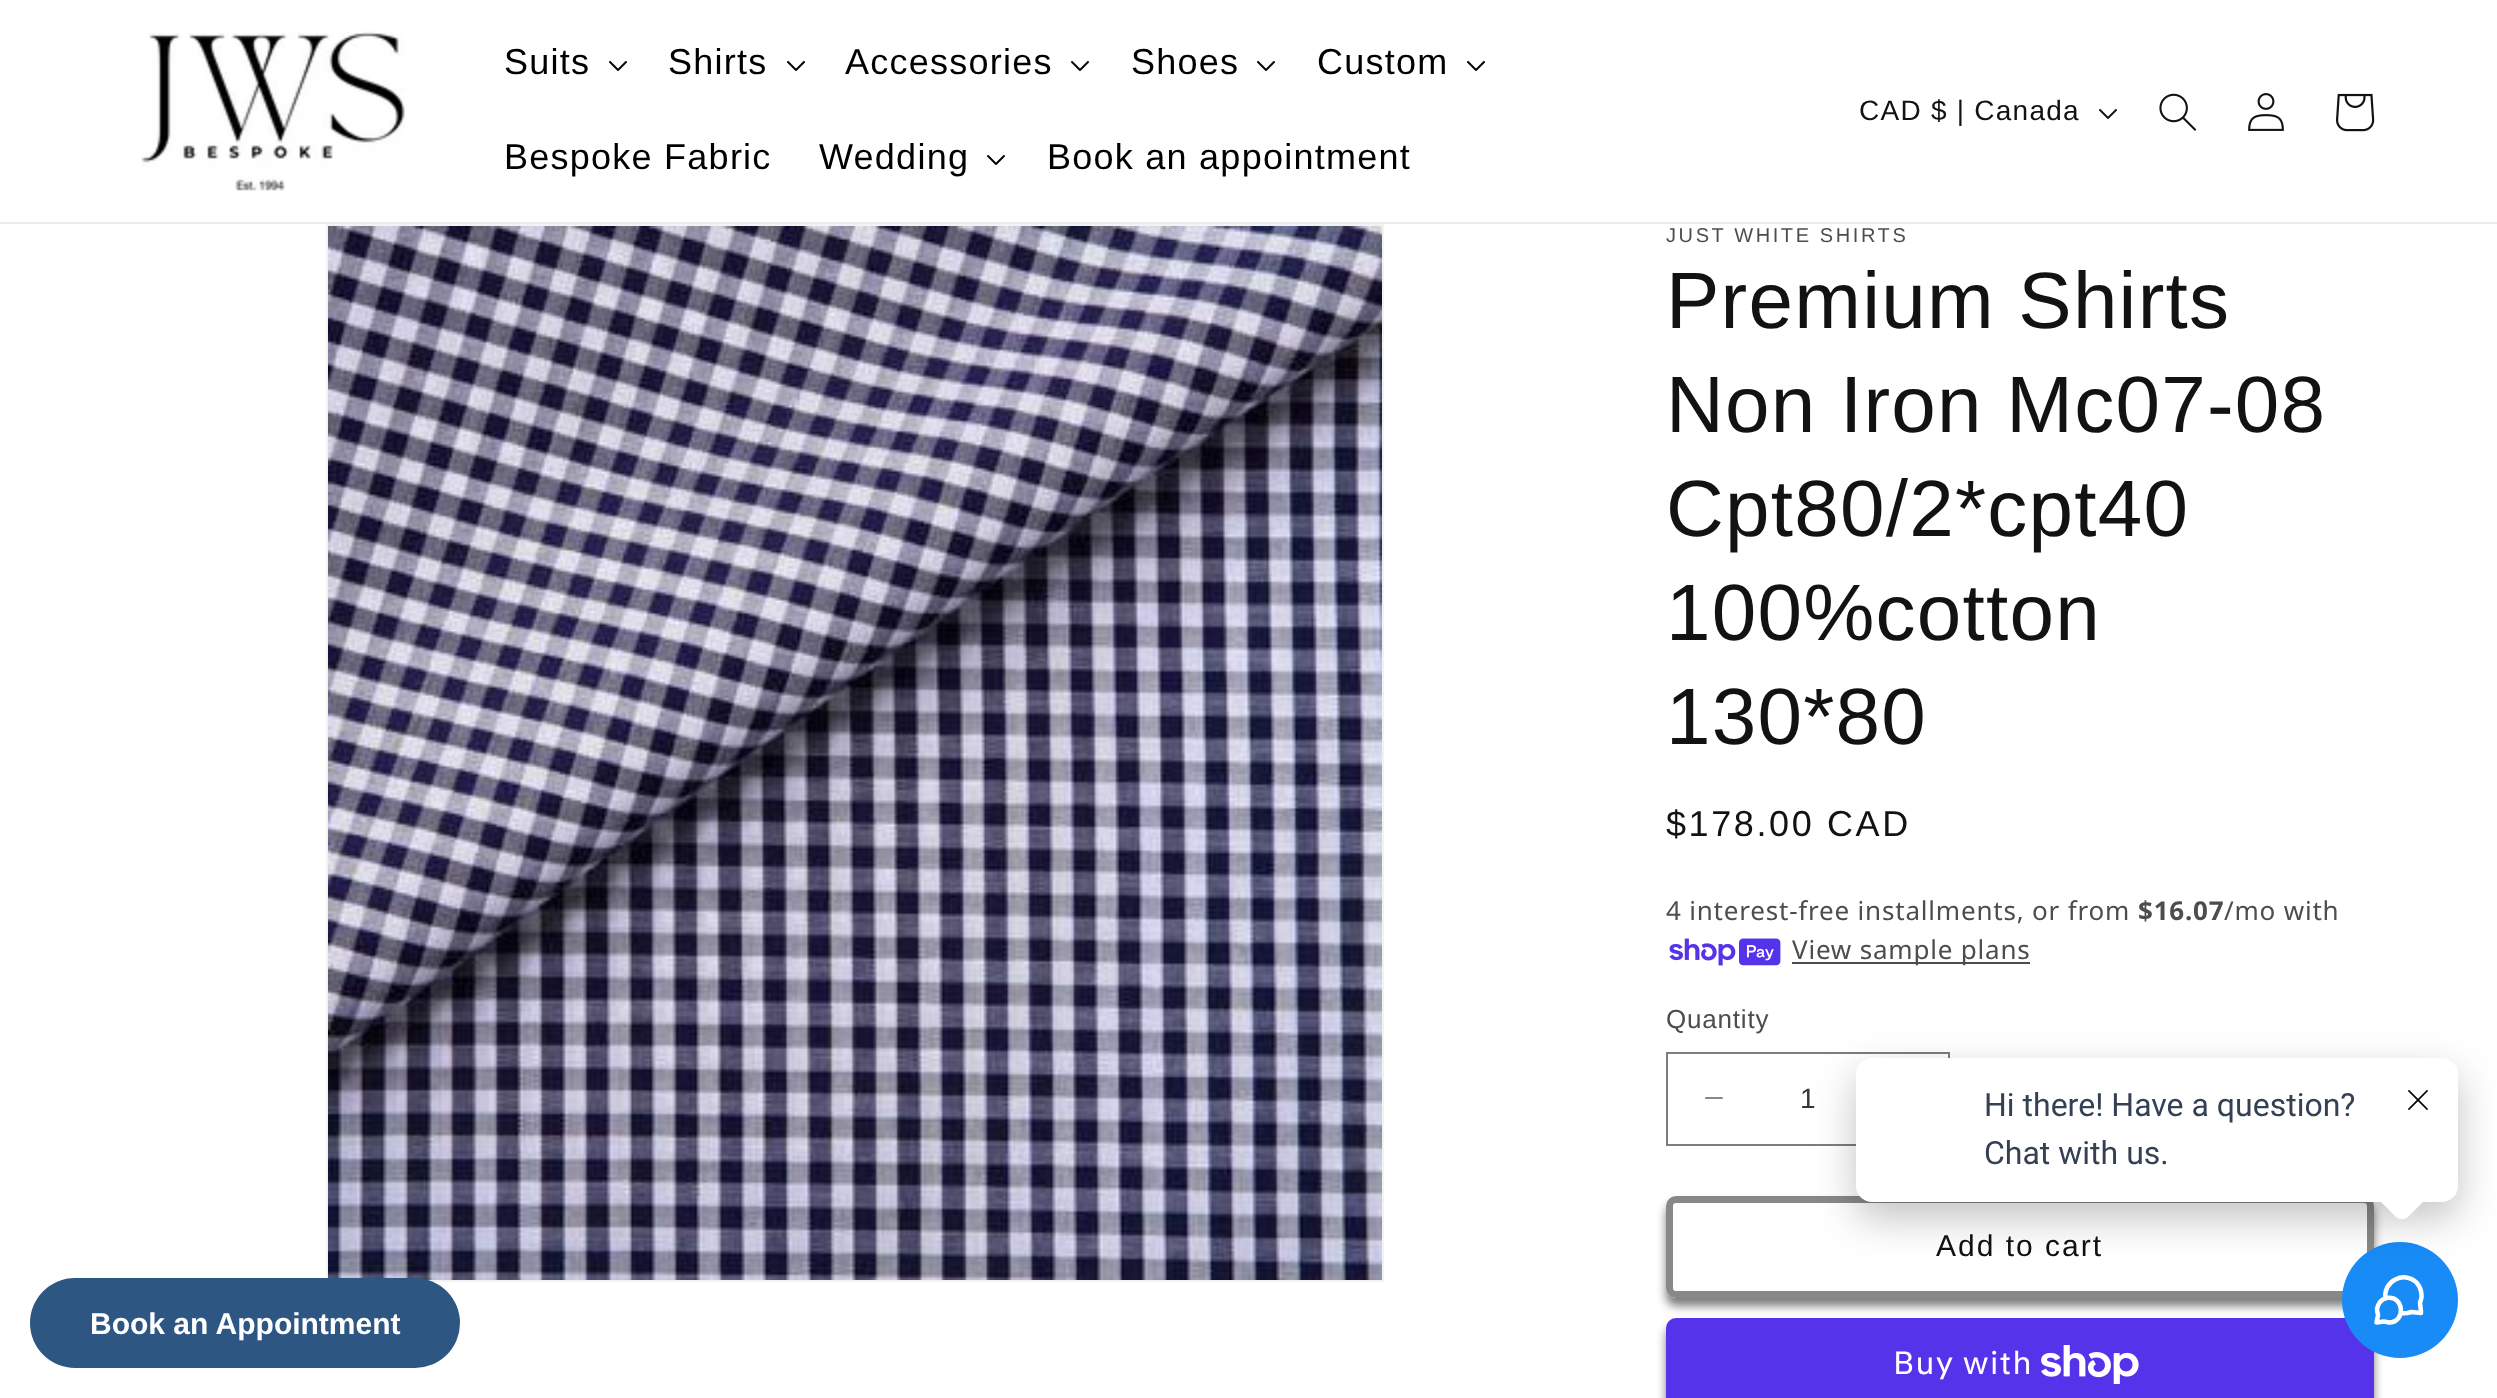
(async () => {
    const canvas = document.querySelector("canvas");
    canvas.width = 2497;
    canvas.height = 1398;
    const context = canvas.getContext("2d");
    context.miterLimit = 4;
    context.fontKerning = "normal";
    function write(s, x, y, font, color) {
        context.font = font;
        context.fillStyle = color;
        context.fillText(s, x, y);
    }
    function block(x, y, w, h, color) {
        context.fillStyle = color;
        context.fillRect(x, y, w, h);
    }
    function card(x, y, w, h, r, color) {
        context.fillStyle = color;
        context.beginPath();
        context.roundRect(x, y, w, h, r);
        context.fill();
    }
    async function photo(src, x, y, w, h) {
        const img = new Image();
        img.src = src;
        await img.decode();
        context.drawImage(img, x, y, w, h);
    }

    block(0, 0, 2497, 1398, "rgb(255, 255, 255)");
    block(0, 222, 2497, 2, "rgb(236, 236, 236)");
    await photo("media/1.png", 141, 31, 264, 160);
    context.letterSpacing = "1.25px";
    write("Suits", 504, 74, "36px Liberation Sans", "rgb(0, 0, 0)");
    await photo("media/2.png", 609, 61, 18, 10);
    write("Shirts", 668, 74, "36px Liberation Sans", "rgb(0, 0, 0)");
    await photo("media/2.png", 787, 61, 18, 10);
    write("Accessories", 845, 74, "36px Liberation Sans", "rgb(0, 0, 0)");
    await photo("media/2.png", 1071, 61, 18, 10);
    write("Shoes", 1131, 74, "36px Liberation Sans", "rgb(0, 0, 0)");
    await photo("media/2.png", 1257, 61, 18, 10);
    write("Custom", 1317, 74, "36px Liberation Sans", "rgb(0, 0, 0)");
    await photo("media/2.png", 1467, 61, 18, 10);
    write("Bespoke Fabric", 504, 169, "36px Liberation Sans", "rgb(0, 0, 0)");
    write("Wedding", 819, 169, "36px Liberation Sans", "rgb(0, 0, 0)");
    await photo("media/2.png", 987, 155, 18, 10);
    write("Book an appointment", 1047, 169, "36px Liberation Sans", "rgb(0, 0, 0)");
    write("CAD $ | Canada", 1859, 120, "28px Liberation Sans", "rgb(18, 18, 18)");
    await photo("media/3.png", 2099, 109, 18, 10);
    await photo("media/4.png", 2159, 93, 37, 38);
    await photo("media/5.png", 2248, 93, 36, 38);
    await photo("media/6.png", 2336, 93, 39, 39);
    context.strokeStyle = "rgb(243, 243, 243)";
    context.lineWidth = 2;
    context.strokeRect(327, 225, 1056, 1056);
    await photo("media/7.png", 328, 226, 1054, 1054);
    context.letterSpacing = "2.6px";
    write("JUST WHITE SHIRTS", 1666, 242, "20px Liberation Sans", "rgb(77, 77, 77)");
    context.letterSpacing = "1.25px";
    write("Premium Shirts", 1666, 328, "80px Liberation Sans", "rgb(18, 18, 18)");
    write("Non Iron Mc07-08", 1666, 432, "80px Liberation Sans", "rgb(18, 18, 18)");
    write("Cpt80/2*cpt40", 1666, 536, "80px Liberation Sans", "rgb(18, 18, 18)");
    write("100%cotton", 1666, 640, "80px Liberation Sans", "rgb(18, 18, 18)");
    write("130*80", 1666, 744, "80px Liberation Sans", "rgb(18, 18, 18)");
    context.letterSpacing = "2.6px";
    write("$178.00 CAD", 1666, 836, "36px Liberation Sans", "rgb(18, 18, 18)");
    context.letterSpacing = "0.8px";
    write("4 interest-free installments, or from", 1666, 920, "26px Noto Sans", "rgb(77, 77, 77)");
    write("$16.07", 2138, 920, "bold 26px Noto Sans", "rgb(77, 77, 77)");
    write("/mo with", 2224, 920, "26px Noto Sans", "rgb(77, 77, 77)");
    await photo("media/8.png", 1669, 938, 112, 28);
    block(1792, 962, 238, 2, "rgb(77, 77, 77)");
    write("View sample plans", 1792, 959, "26px Noto Sans", "rgb(77, 77, 77)");
    write("Quantity", 1666, 1028, "26px Liberation Sans", "rgb(77, 77, 77)");
    await photo("media/9.png", 1705, 1097, 18, 2);
    context.strokeStyle = "rgb(125, 125, 125)";
    context.strokeRect(1667, 1053, 282, 92);
    context.letterSpacing = "0px";
    write("1", 1800, 1108, "28px Liberation Sans", "rgb(54, 54, 54)");
    context.fillStyle = "rgba(18, 18, 18, 0.55)";
    context.filter = "blur(5px)";
    context.beginPath();
    context.roundRect(1666, 1204, 708, 102, 10);
    context.fill();
    context.filter = "none";
    card(1666, 1196, 708, 102, 10, "rgb(255, 255, 255)");
    context.beginPath();
    context.roundRect(1669, 1199, 702, 96, 7);
    context.strokeStyle = "rgb(255, 255, 255)";
    context.lineWidth = 6;
    context.stroke();
    context.beginPath();
    context.roundRect(1669.5, 1199.5, 701, 95, 6.5);
    context.strokeStyle = "rgba(18, 18, 18, 0.5)";
    context.lineWidth = 7;
    context.stroke();
    context.letterSpacing = "2px";
    write("Add to cart", 1936, 1256, "30px Liberation Sans", "rgb(18, 18, 18)");
    context.fillStyle = "rgba(18, 18, 18, 0.55)";
    context.filter = "blur(5px)";
    context.beginPath();
    context.roundRect(1666, 1326, 708, 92, 10);
    context.fill();
    context.filter = "none";
    card(1666, 1318, 708, 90, 10, "rgb(84, 51, 235)");
    context.letterSpacing = "1.25px";
    write("Buy with", 1893, 1374, "32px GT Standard", "rgb(255, 255, 255)");
    await photo("media/10.png", 2041, 1345, 98, 39);
    context.fillStyle = "rgb(24, 139, 246)";
    context.beginPath();
    context.arc(2400, 1300, 58, 0, Math.PI * 2);
    context.fill();
    context.beginPath();
    context.moveTo(2385.5, 1298.5);
    context.bezierCurveTo(2383, 1281, 2404, 1270.5, 2416.5, 1282.5);
    context.bezierCurveTo(2420, 1286.5, 2421.5, 1290.5, 2421.5, 1295.5);
    context.bezierCurveTo(2422, 1298, 2420.5, 1300.5, 2420, 1303);
    context.lineTo(2421, 1311.5);
    context.lineTo(2421, 1313);
    context.lineTo(2411.5, 1312);
    context.lineTo(2407.5, 1313);
    context.lineTo(2400.5, 1313.5);
    context.moveTo(2389, 1322.5);
    context.bezierCurveTo(2406.5, 1322.5, 2404, 1294.5, 2386.5, 1298);
    context.bezierCurveTo(2382.5, 1299, 2379.5, 1301.5, 2378, 1305.5);
    context.bezierCurveTo(2375.5, 1311, 2378, 1311.5, 2378, 1315.5);
    context.lineTo(2376.5, 1322.5);
    context.lineTo(2384, 1321.5);
    context.closePath();
    context.strokeStyle = "rgb(255, 255, 255)";
    context.lineWidth = 4.5;
    context.lineCap = "round";
    context.lineJoin = "round";
    context.stroke();
    context.fillStyle = "rgba(0, 0, 0, 0.24)";
    context.filter = "blur(20px)";
    context.beginPath();
    context.roundRect(1856, 1074, 602, 144, 16);
    context.fill();
    context.filter = "none";
    card(1856, 1058, 602, 144, 16, "rgb(255, 255, 255)");
    context.letterSpacing = "0px";
    write("Hi there! Have a question?", 1984, 1116, "32px Roboto", "rgb(52, 64, 84)");
    write("Chat with us.", 1984, 1164, "32px Roboto", "rgb(52, 64, 84)");
    context.fillStyle = "rgb(255, 255, 255)";
    context.beginPath();
    context.moveTo(2408, 1171);
    context.lineTo(2425, 1188);
    context.bezierCurveTo(2428, 1191, 2428, 1197, 2425, 1200);
    context.lineTo(2408, 1217);
    context.bezierCurveTo(2405, 1220, 2399, 1220, 2396, 1217);
    context.lineTo(2379, 1200);
    context.bezierCurveTo(2376, 1197, 2376, 1191, 2379, 1188);
    context.lineTo(2396, 1171);
    context.bezierCurveTo(2399, 1168, 2405, 1168, 2408, 1171);
    context.closePath();
    context.fill();
    await photo("media/11.png", 2408, 1090, 20, 20);
    card(30, 1278, 430, 90, 45, "rgb(45, 86, 131)");
    write("Book an Appointment", 90, 1334, "bold 30px Liberation Sans", "rgb(255, 255, 255)");
})();
